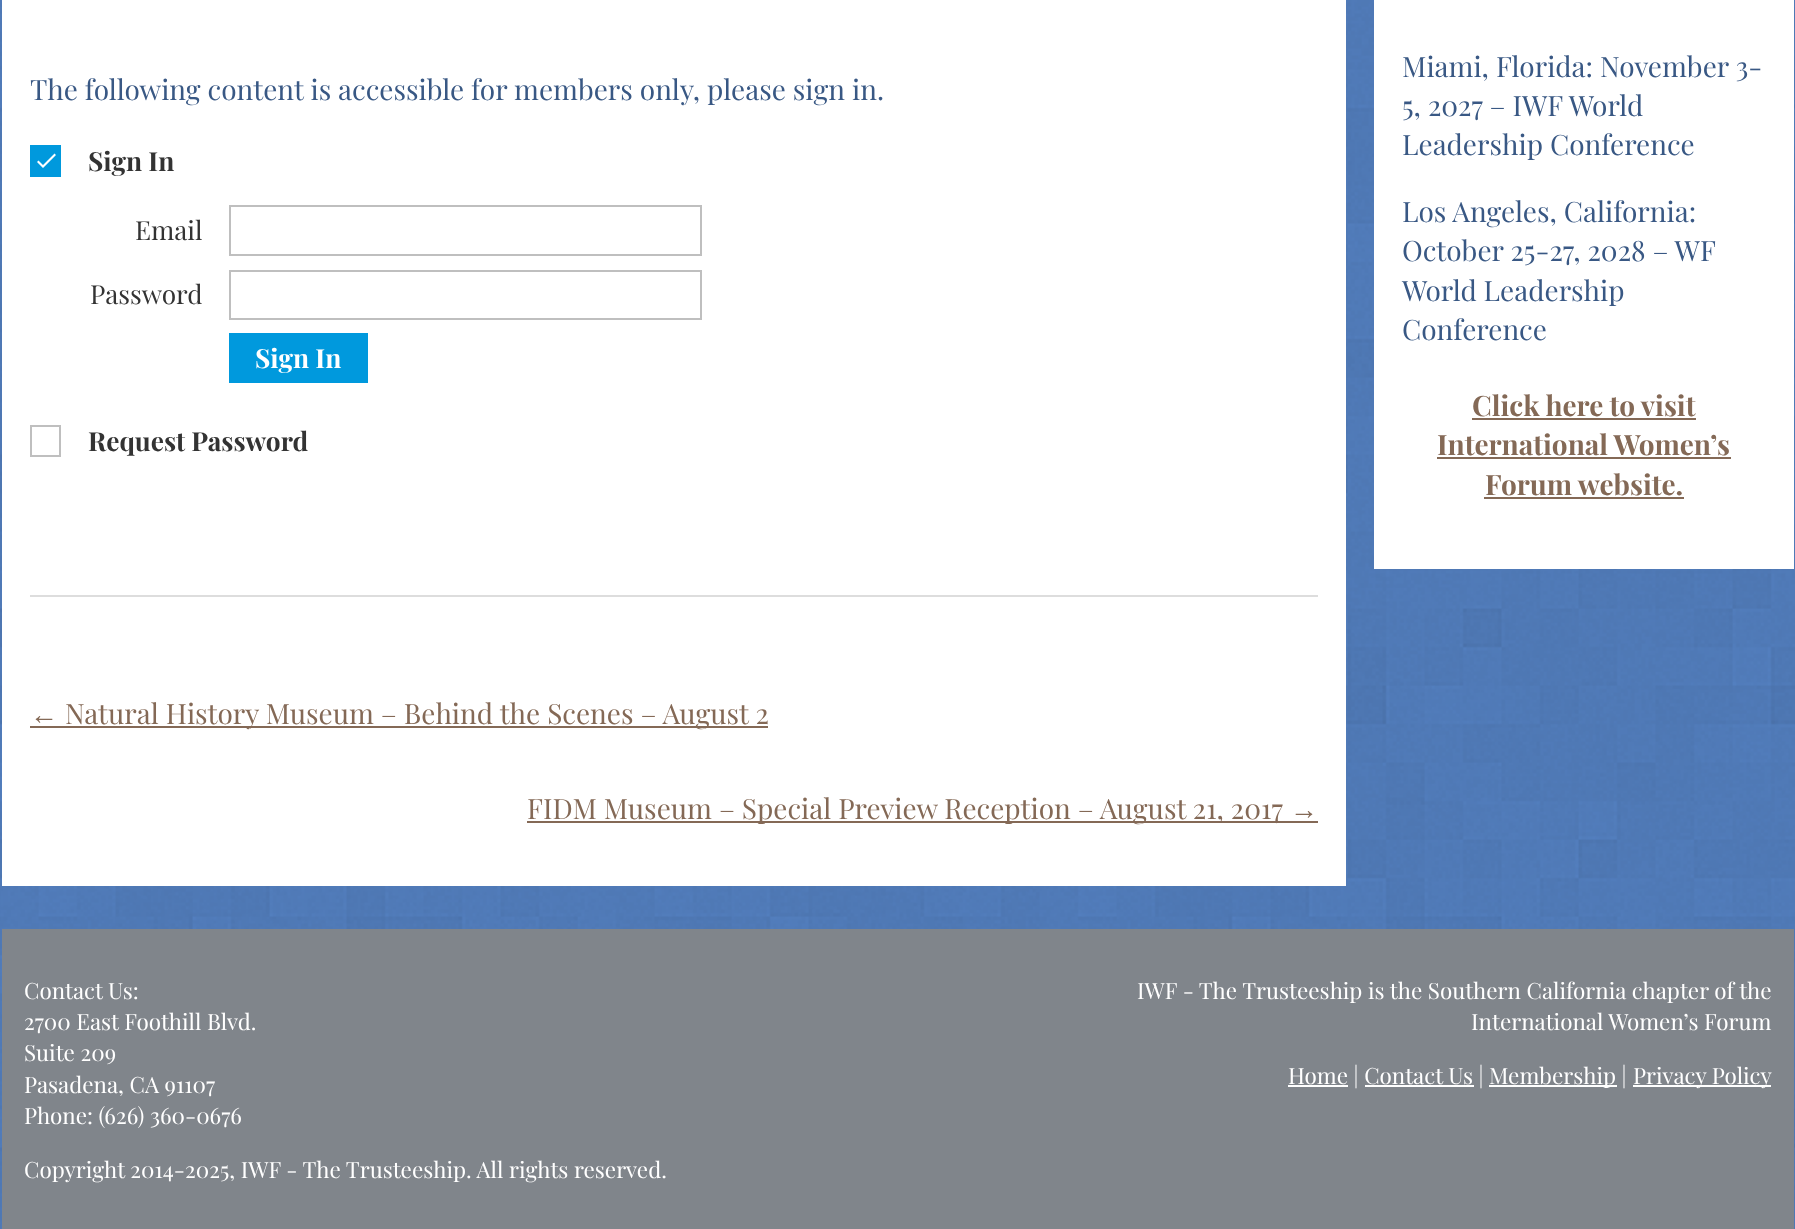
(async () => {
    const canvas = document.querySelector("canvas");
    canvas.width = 1795;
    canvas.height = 1229;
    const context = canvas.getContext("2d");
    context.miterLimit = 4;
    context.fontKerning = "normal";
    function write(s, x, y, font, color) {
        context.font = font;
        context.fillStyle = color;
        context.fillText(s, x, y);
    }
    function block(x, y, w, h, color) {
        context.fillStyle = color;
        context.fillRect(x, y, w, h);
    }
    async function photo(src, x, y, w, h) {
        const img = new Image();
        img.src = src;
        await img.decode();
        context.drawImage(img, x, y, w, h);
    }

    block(0, 0, 1795, 1229, "rgb(255, 255, 255)");
    await photo("media/1.png", 0, 0, 1795, 1229);
    block(2, 0, 1344, 886, "rgb(255, 255, 255)");
    block(30, 595, 1288, 2, "rgb(221, 221, 221)");
    write("The following content is accessible for members only, please sign in.", 30, 100, "28px Playfair Display", "rgb(57, 88, 132)");
    block(30, 145, 31, 32, "rgb(0, 153, 221)");
    context.fillStyle = "rgb(255, 255, 255)";
    context.beginPath();
    context.moveTo(43, 165);
    context.lineTo(54.5, 153.5);
    context.lineTo(56, 155);
    context.lineTo(43, 168);
    context.lineTo(37, 162);
    context.lineTo(38.5, 160.5);
    context.closePath();
    context.fill();
    write("Sign In", 88, 171, "bold 26.25px Playfair Display", "rgb(51, 51, 51)");
    write("Email", 135, 240, "26.25px Playfair Display", "rgb(51, 51, 51)");
    context.strokeStyle = "rgb(191, 191, 191)";
    context.lineWidth = 2;
    context.strokeRect(230, 206, 471, 49);
    write("Password", 90, 304, "26.25px Playfair Display", "rgb(51, 51, 51)");
    context.strokeRect(230, 271, 471, 48);
    block(229, 333, 139, 50, "rgb(0, 153, 221)");
    write("Sign In", 255, 368, "bold 26.25px Playfair Display", "rgb(255, 255, 255)");
    context.strokeRect(31, 426, 29, 30);
    write("Request Password", 88, 451, "bold 26.25px Playfair Display", "rgb(51, 51, 51)");
    write("←", 30, 724, "28px Liberation Serif", "rgb(132, 105, 86)");
    block(30, 726, 738, 2, "rgb(132, 105, 86)");
    write("Natural History Museum – Behind the Scenes – August 2", 65, 724, "28px Playfair Display", "rgb(132, 105, 86)");
    block(527, 821, 791, 2, "rgb(132, 105, 86)");
    write("FIDM Museum – Special Preview Reception – August 21, 2017", 527, 819, "28px Playfair Display", "rgb(132, 105, 86)");
    write("→", 1290, 819, "28px Liberation Serif", "rgb(132, 105, 86)");
    block(1374, 0, 420, 569, "rgb(255, 255, 255)");
    write("Miami, Florida: November 3-", 1402, 77, "28px Playfair Display", "rgb(57, 88, 132)");
    write("5, 2027 – IWF World", 1402, 116, "28px Playfair Display", "rgb(57, 88, 132)");
    write("Leadership Conference", 1402, 155, "28px Playfair Display", "rgb(57, 88, 132)");
    write("Los Angeles, California:", 1402, 222, "28px Playfair Display", "rgb(57, 88, 132)");
    write("October 25-27, 2028 – WF", 1402, 261, "28px Playfair Display", "rgb(57, 88, 132)");
    write("World Leadership", 1402, 301, "28px Playfair Display", "rgb(57, 88, 132)");
    write("Conference", 1402, 340, "28px Playfair Display", "rgb(57, 88, 132)");
    write("Click here to visit", 1472, 416, "bold 28px Playfair Display", "rgb(132, 105, 86)");
    block(1472, 418, 224, 2, "rgb(132, 105, 86)");
    write("International Women’s", 1437, 455, "bold 28px Playfair Display", "rgb(132, 105, 86)");
    block(1437, 457, 294, 2, "rgb(132, 105, 86)");
    write("Forum website.", 1485, 495, "bold 28px Playfair Display", "rgb(132, 105, 86)");
    block(1484, 497, 200, 2, "rgb(132, 105, 86)");
    block(2, 929, 1792, 300, "rgb(128, 133, 139)");
    write("Contact Us:", 24, 999, "22.4px Playfair Display", "rgb(255, 255, 255)");
    write("2700 East Foothill Blvd.", 24, 1030, "22.4px Playfair Display", "rgb(255, 255, 255)");
    write("Suite 209", 24, 1061, "22.4px Playfair Display", "rgb(255, 255, 255)");
    write("Pasadena, CA 91107", 24, 1093, "22.4px Playfair Display", "rgb(255, 255, 255)");
    write("Phone: (626) 360-0676", 24, 1124, "22.4px Playfair Display", "rgb(255, 255, 255)");
    write("Copyright 2014-2025, IWF - The Trusteeship. All rights reserved.", 24, 1178, "22.4px Playfair Display", "rgb(255, 255, 255)");
    write("IWF - The Trusteeship is the Southern California chapter of the", 1137, 999, "22.4px Playfair Display", "rgb(255, 255, 255)");
    write("International Women’s Forum", 1471, 1030, "22.4px Playfair Display", "rgb(255, 255, 255)");
    block(1288, 1085, 60, 2, "rgb(255, 255, 255)");
    write("Home | Contact Us |", 1288, 1084, "22.4px Playfair Display", "rgb(255, 255, 255)");
    block(1489, 1085, 128, 2, "rgb(255, 255, 255)");
    write("Membership |", 1489, 1084, "22.4px Playfair Display", "rgb(255, 255, 255)");
    block(1633, 1085, 138, 2, "rgb(255, 255, 255)");
    write("Privacy Policy", 1633, 1084, "22.4px Playfair Display", "rgb(255, 255, 255)");
    block(1365, 1085, 109, 2, "rgb(255, 255, 255)");
})();
